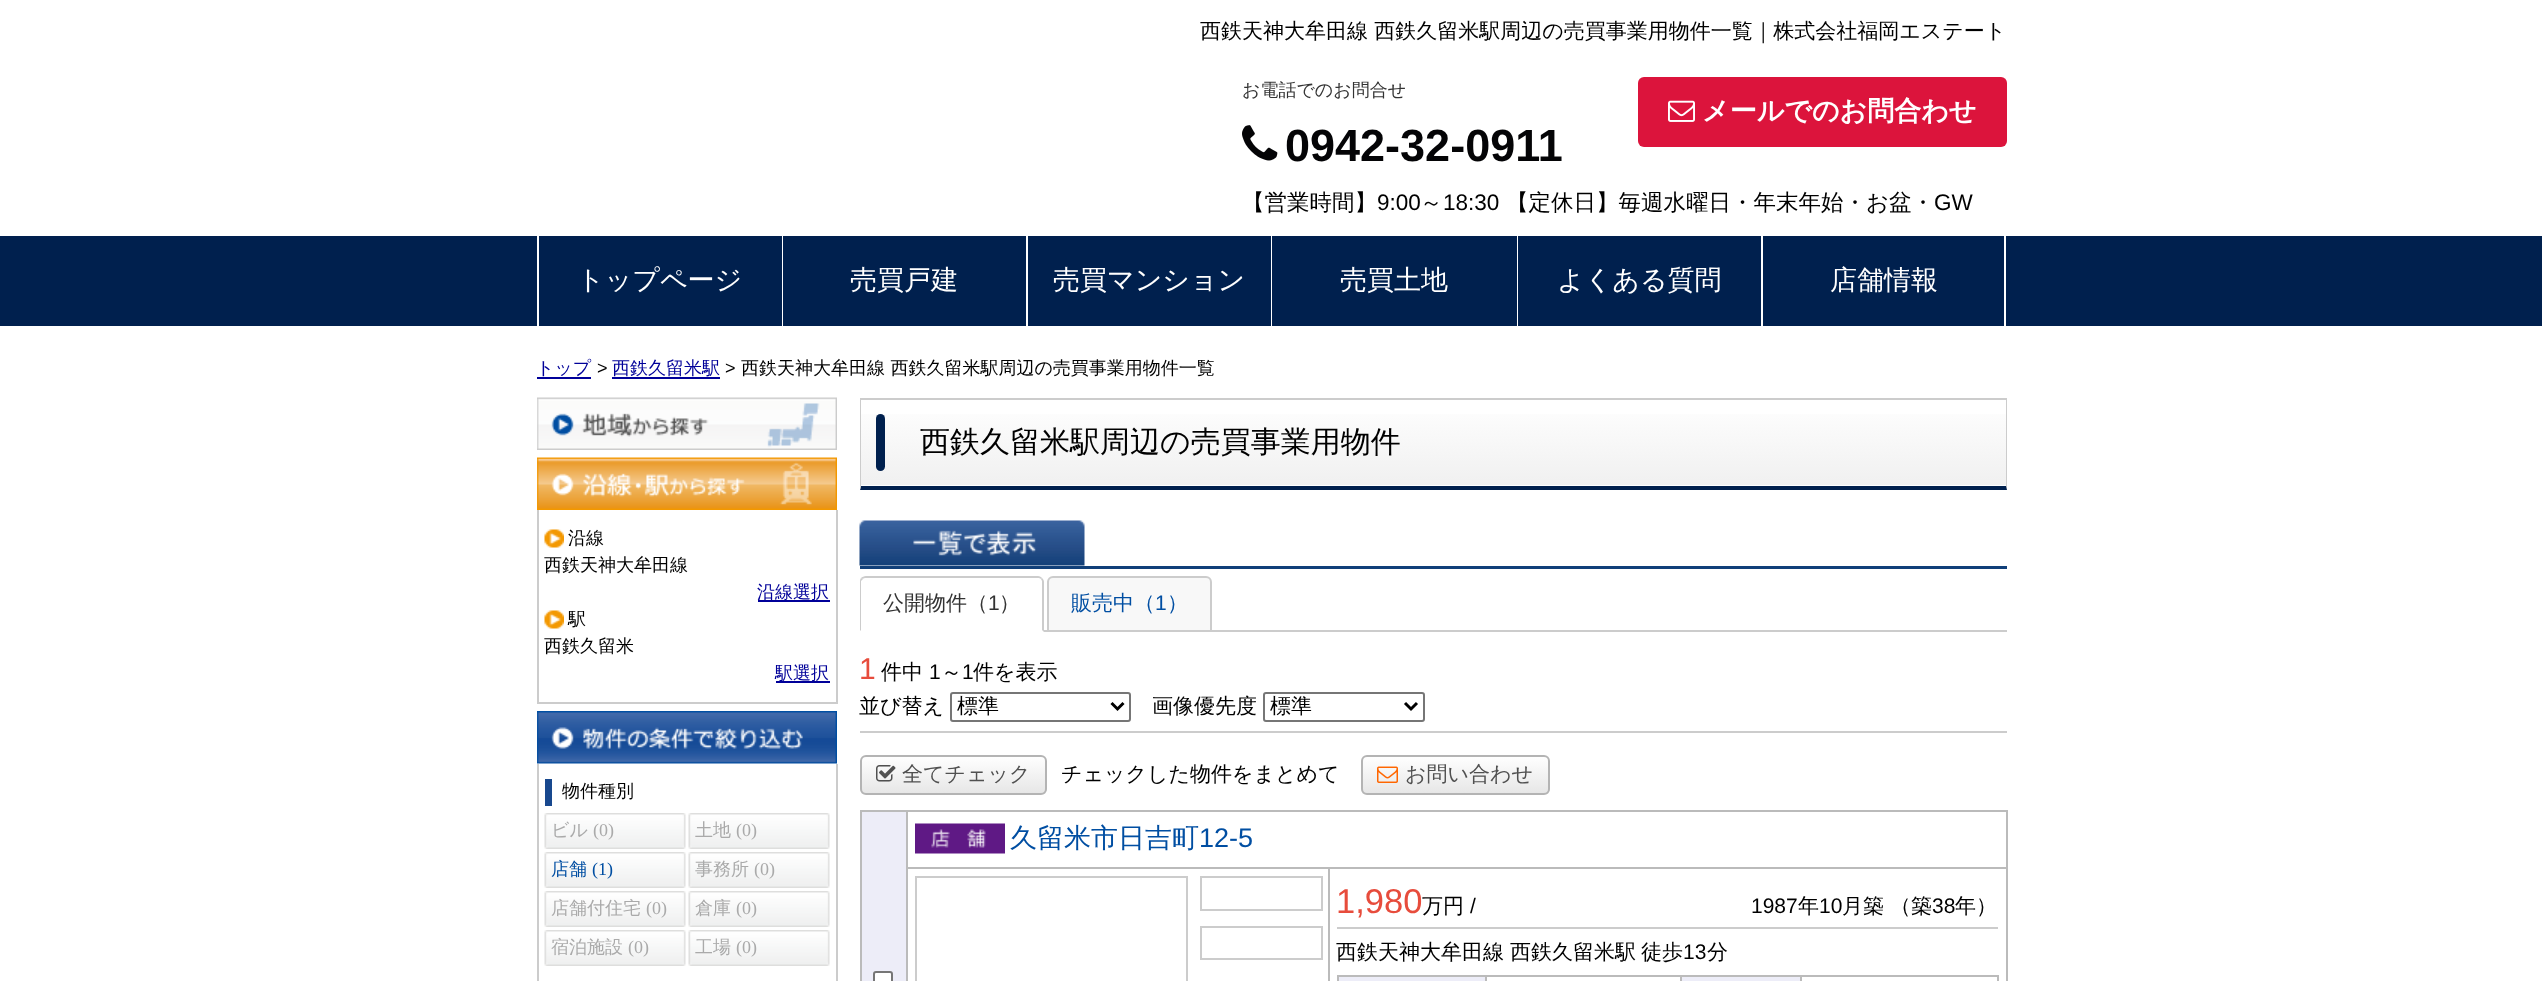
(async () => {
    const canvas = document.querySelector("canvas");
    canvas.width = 2542;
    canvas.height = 981;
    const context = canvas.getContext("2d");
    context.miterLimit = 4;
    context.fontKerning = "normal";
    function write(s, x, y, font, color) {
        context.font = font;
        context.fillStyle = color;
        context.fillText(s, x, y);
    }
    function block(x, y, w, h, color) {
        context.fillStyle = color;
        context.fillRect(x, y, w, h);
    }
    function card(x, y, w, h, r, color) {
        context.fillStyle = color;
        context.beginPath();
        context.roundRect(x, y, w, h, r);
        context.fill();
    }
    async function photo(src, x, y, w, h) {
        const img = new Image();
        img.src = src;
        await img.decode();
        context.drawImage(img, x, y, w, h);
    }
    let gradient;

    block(0, 0, 2542, 981, "rgb(255, 255, 255)");
    write("西鉄天神大牟田線 西鉄久留米駅周辺の売買事業用物件一覧｜株式会社福岡エステート", 1200, 38, "500 21px WenQuanYi Zen Hei", "rgb(0, 0, 0)");
    write("お電話でのお問合せ", 1242, 96, "500 18px WenQuanYi Zen Hei", "rgb(51, 51, 51)");
    await photo("media/1.png", 1242, 125, 36, 36);
    write("0942-32-0911", 1285, 161, "bold 45px Liberation Sans", "rgb(4, 4, 6)");
    card(1638, 77, 369, 70, 6, "rgb(220, 20, 60)");
    await photo("media/2.png", 1668, 100, 27, 22);
    write("メールでのお問合わせ", 1702, 120, "bold 27px WenQuanYi Zen Hei", "rgb(255, 255, 255)");
    write("【営業時間】", 1242, 210, "500 22.5px WenQuanYi Zen Hei", "rgb(0, 0, 0)");
    write("9:00", 1377, 210, "22.5px Liberation Sans", "rgb(0, 0, 0)");
    write("～", 1420, 210, "500 22.5px WenQuanYi Zen Hei", "rgb(0, 0, 0)");
    write("18:30", 1443, 210, "22.5px Liberation Sans", "rgb(0, 0, 0)");
    write("【定休日】毎週水曜日・年末年始・お盆・", 1506, 210, "500 22.5px WenQuanYi Zen Hei", "rgb(0, 0, 0)");
    write("GW", 1934, 210, "22.5px Liberation Sans", "rgb(0, 0, 0)");
    block(0, 236, 2542, 90, "rgb(0, 32, 78)");
    block(537, 236, 2, 90, "rgb(255, 255, 255)");
    write("トップページ", 577, 289, "500 27px WenQuanYi Zen Hei", "rgb(255, 255, 255)");
    block(782, 236, 1, 90, "rgb(255, 255, 255)");
    write("売買戸建", 850, 289, "500 27px WenQuanYi Zen Hei", "rgb(255, 255, 255)");
    block(1026, 236, 2, 90, "rgb(255, 255, 255)");
    write("売買マンション", 1053, 289, "500 27px WenQuanYi Zen Hei", "rgb(255, 255, 255)");
    block(1271, 236, 1, 90, "rgb(255, 255, 255)");
    write("売買土地", 1340, 289, "500 27px WenQuanYi Zen Hei", "rgb(255, 255, 255)");
    block(1517, 236, 1, 90, "rgb(255, 255, 255)");
    write("よくある質問", 1557, 289, "500 27px WenQuanYi Zen Hei", "rgb(255, 255, 255)");
    block(2004, 236, 2, 90, "rgb(255, 255, 255)");
    block(1761, 236, 2, 90, "rgb(255, 255, 255)");
    write("店舗情報", 1830, 289, "500 27px WenQuanYi Zen Hei", "rgb(255, 255, 255)");
    write("トップ", 536, 374, "500 18px WenQuanYi Zen Hei", "rgb(0, 0, 153)");
    block(537, 377, 54, 2, "rgb(0, 0, 153)");
    write(">", 597, 374, "18px Liberation Sans", "rgb(0, 0, 0)");
    write("西鉄久留米駅", 612, 374, "500 18px WenQuanYi Zen Hei", "rgb(0, 0, 153)");
    block(612, 377, 108, 2, "rgb(0, 0, 153)");
    write(">", 725, 374, "18px Liberation Sans", "rgb(0, 0, 0)");
    write("西鉄天神大牟田線 西鉄久留米駅周辺の売買事業用物件一覧", 741, 374, "500 18px WenQuanYi Zen Hei", "rgb(0, 0, 0)");
    await photo("media/3.png", 537, 397, 300, 53);
    await photo("media/4.png", 537, 457, 300, 53);
    block(836, 510, 2, 194, "rgb(204, 204, 204)");
    block(537, 702, 300, 2, "rgb(204, 204, 204)");
    block(537, 510, 2, 194, "rgb(204, 204, 204)");
    await photo("media/5.png", 544, 529, 20, 19);
    write("沿線", 568, 544, "500 18px WenQuanYi Zen Hei", "rgb(0, 0, 0)");
    write("西鉄天神大牟田線", 544, 571, "500 18px WenQuanYi Zen Hei", "rgb(0, 0, 0)");
    block(758, 600, 72, 2, "rgb(0, 0, 153)");
    write("沿線選択", 757, 598, "500 18px WenQuanYi Zen Hei", "rgb(0, 0, 153)");
    await photo("media/5.png", 544, 610, 20, 19);
    write("駅", 568, 625, "500 18px WenQuanYi Zen Hei", "rgb(0, 0, 0)");
    write("西鉄久留米", 544, 652, "500 18px WenQuanYi Zen Hei", "rgb(0, 0, 0)");
    block(776, 681, 54, 2, "rgb(0, 0, 153)");
    write("駅選択", 775, 679, "500 18px WenQuanYi Zen Hei", "rgb(0, 0, 153)");
    await photo("media/6.png", 537, 711, 300, 53);
    block(836, 764, 2, 217, "rgb(204, 204, 204)");
    block(537, 764, 2, 217, "rgb(204, 204, 204)");
    block(545, 779, 7, 27, "rgb(24, 72, 142)");
    write("物件種別", 562, 797, "500 18px WenQuanYi Zen Hei", "rgb(0, 0, 0)");
    await photo("media/7.png", 544, 813, 142, 36);
    write("ビル", 551, 836, "500 18px WenQuanYi Zen Hei", "rgb(170, 170, 170)");
    write("(0)", 593, 836, "18px Liberation Serif", "rgb(170, 170, 170)");
    await photo("media/7.png", 688, 813, 142, 36);
    write("土地", 695, 836, "500 18px WenQuanYi Zen Hei", "rgb(170, 170, 170)");
    write("(0)", 736, 836, "18px Liberation Serif", "rgb(170, 170, 170)");
    await photo("media/7.png", 544, 852, 142, 36);
    write("店舗", 551, 875, "500 18px WenQuanYi Zen Hei", "rgb(0, 78, 162)");
    write("(1)", 592, 875, "18px Liberation Serif", "rgb(0, 78, 162)");
    await photo("media/7.png", 688, 852, 142, 36);
    write("事務所", 695, 875, "500 18px WenQuanYi Zen Hei", "rgb(170, 170, 170)");
    write("(0)", 754, 875, "18px Liberation Serif", "rgb(170, 170, 170)");
    await photo("media/7.png", 544, 891, 142, 36);
    write("店舗付住宅", 551, 914, "500 18px WenQuanYi Zen Hei", "rgb(170, 170, 170)");
    write("(0)", 646, 914, "18px Liberation Serif", "rgb(170, 170, 170)");
    await photo("media/7.png", 688, 891, 142, 36);
    write("倉庫", 695, 914, "500 18px WenQuanYi Zen Hei", "rgb(170, 170, 170)");
    write("(0)", 736, 914, "18px Liberation Serif", "rgb(170, 170, 170)");
    await photo("media/7.png", 544, 930, 142, 36);
    write("宿泊施設", 551, 953, "500 18px WenQuanYi Zen Hei", "rgb(170, 170, 170)");
    write("(0)", 628, 953, "18px Liberation Serif", "rgb(170, 170, 170)");
    await photo("media/7.png", 688, 930, 142, 36);
    write("工場", 695, 953, "500 18px WenQuanYi Zen Hei", "rgb(170, 170, 170)");
    write("(0)", 736, 953, "18px Liberation Serif", "rgb(170, 170, 170)");
    gradient = context.createLinearGradient(1433, 399, 1433, 486);
    gradient.addColorStop(0, "rgb(255, 255, 255)");
    gradient.addColorStop(1, "rgb(240, 240, 240)");
    context.fillStyle = gradient;
    context.fillRect(861, 414, 1145, 71);
    block(860, 398, 1147, 2, "rgb(204, 204, 204)");
    context.beginPath();
    context.moveTo(2007, 398);
    context.lineTo(2007, 490);
    context.lineTo(2006, 486);
    context.lineTo(2006, 399);
    context.closePath();
    context.fill();
    context.fillStyle = "rgb(0, 32, 78)";
    context.beginPath();
    context.moveTo(2007, 490);
    context.lineTo(860, 490);
    context.lineTo(861, 486);
    context.lineTo(2006, 486);
    context.closePath();
    context.fill();
    context.fillStyle = "rgb(204, 204, 204)";
    context.beginPath();
    context.moveTo(860, 490);
    context.lineTo(860, 398);
    context.lineTo(861, 399);
    context.lineTo(861, 486);
    context.closePath();
    context.fill();
    card(876, 414, 9, 57, 4.5, "rgb(0, 32, 78)");
    write("西鉄久留米駅周辺の売買事業用物件", 920, 452, "500 30px WenQuanYi Zen Hei", "rgb(0, 0, 0)");
    block(860, 566, 1147, 3, "rgb(16, 63, 121)");
    await photo("media/8.png", 859, 520, 226, 46);
    block(1044, 630, 963, 2, "rgb(204, 204, 204)");
    context.beginPath();
    context.moveTo(866, 576);
    context.bezierCurveTo(864, 576, 862, 577, 861, 578);
    context.lineTo(863, 579);
    context.bezierCurveTo(863, 578, 865, 578, 866, 578);
    context.lineTo(1038, 578);
    context.bezierCurveTo(1039, 578, 1040, 578, 1041, 579);
    context.lineTo(1042, 578);
    context.bezierCurveTo(1041, 577, 1040, 576, 1038, 576);
    context.closePath();
    context.fill();
    context.beginPath();
    context.moveTo(1044, 632);
    context.lineTo(1044, 582);
    context.bezierCurveTo(1044, 580, 1043, 579, 1042, 578);
    context.lineTo(1041, 579);
    context.lineTo(1042, 581);
    context.lineTo(1042, 630);
    context.closePath();
    context.fill();
    context.beginPath();
    context.moveTo(861, 578);
    context.bezierCurveTo(860, 579, 860, 581, 860, 582);
    context.lineTo(860, 631);
    context.lineTo(861, 630);
    context.lineTo(861, 581);
    context.lineTo(863, 579);
    context.closePath();
    context.fill();
    write("公開物件（", 883, 610, "500 21px WenQuanYi Zen Hei", "rgb(51, 51, 51)");
    write("1", 988, 610, "21px Liberation Sans", "rgb(51, 51, 51)");
    write("）", 999, 610, "500 21px WenQuanYi Zen Hei", "rgb(51, 51, 51)");
    context.fillStyle = "rgb(248, 248, 248)";
    context.beginPath();
    context.roundRect(1048, 577, 163, 54, [5, 5, 0, 0]);
    context.fill();
    context.strokeStyle = "rgb(204, 204, 204)";
    context.lineWidth = 2;
    context.stroke();
    write("販売中（", 1071, 610, "500 21px WenQuanYi Zen Hei", "rgb(0, 78, 162)");
    write("1", 1155, 610, "21px Liberation Sans", "rgb(0, 78, 162)");
    write("）", 1167, 610, "500 21px WenQuanYi Zen Hei", "rgb(0, 78, 162)");
    write("1", 859, 679, "30px Liberation Sans", "rgb(231, 76, 60)");
    write("件中", 881, 679, "500 21px WenQuanYi Zen Hei", "rgb(0, 0, 0)");
    write("1", 929, 679, "21px Liberation Sans", "rgb(0, 0, 0)");
    write("～", 941, 679, "500 21px WenQuanYi Zen Hei", "rgb(0, 0, 0)");
    write("1", 962, 679, "21px Liberation Sans", "rgb(0, 0, 0)");
    write("件を表示", 973, 679, "500 21px WenQuanYi Zen Hei", "rgb(0, 0, 0)");
    block(860, 731, 1147, 2, "rgb(204, 204, 204)");
    write("並び替え", 859, 713, "500 21px WenQuanYi Zen Hei", "rgb(0, 0, 0)");
    context.beginPath();
    context.roundRect(951, 693, 179, 28, 2);
    context.strokeStyle = "rgb(118, 118, 118)";
    context.stroke();
    context.beginPath();
    context.moveTo(1111.5, 703);
    context.lineTo(1117.5, 709);
    context.lineTo(1123.5, 703);
    context.strokeStyle = "rgb(0, 0, 0)";
    context.lineWidth = 3;
    context.stroke();
    write("標準", 957, 713, "500 21px WenQuanYi Zen Hei", "rgb(0, 0, 0)");
    write("画像優先度", 1152, 713, "500 21px WenQuanYi Zen Hei", "rgb(0, 0, 0)");
    context.beginPath();
    context.roundRect(1264, 693, 160, 28, 2);
    context.strokeStyle = "rgb(118, 118, 118)";
    context.lineWidth = 2;
    context.stroke();
    context.beginPath();
    context.moveTo(1405, 703);
    context.lineTo(1411, 709);
    context.lineTo(1417, 703);
    context.strokeStyle = "rgb(0, 0, 0)";
    context.lineWidth = 3;
    context.stroke();
    write("標準", 1270, 713, "500 21px WenQuanYi Zen Hei", "rgb(0, 0, 0)");
    context.save();
    context.beginPath();
    context.roundRect(860, 755, 187, 40, 6);
    context.clip();
    gradient = context.createLinearGradient(953, 756, 953, 794);
    gradient.addColorStop(0, "rgb(255, 255, 255)");
    gradient.addColorStop(1, "rgb(230, 230, 230)");
    context.fillStyle = gradient;
    context.fillRect(860, 756, 187, 38);
    context.restore();
    context.beginPath();
    context.roundRect(861, 756, 185, 38, 5);
    context.strokeStyle = "rgb(180, 180, 180)";
    context.lineWidth = 2;
    context.stroke();
    await photo("media/9.png", 876, 765, 20, 17);
    write("全てチェック", 902, 781, "500 21px WenQuanYi Zen Hei", "rgb(80, 80, 80)");
    write("チェックした物件をまとめて", 1061, 781, "500 21px WenQuanYi Zen Hei", "rgb(0, 0, 0)");
    context.save();
    context.beginPath();
    context.roundRect(1361, 755, 189, 40, 6);
    context.clip();
    gradient = context.createLinearGradient(1455, 756, 1455, 794);
    gradient.addColorStop(0, "rgb(255, 255, 255)");
    gradient.addColorStop(1, "rgb(230, 230, 230)");
    context.fillStyle = gradient;
    context.fillRect(1361, 756, 189, 38);
    context.restore();
    context.beginPath();
    context.roundRect(1362, 756, 187, 38, 5);
    context.stroke();
    await photo("media/10.png", 1377, 766, 21, 17);
    write("お問い合わせ", 1405, 781, "500 21px WenQuanYi Zen Hei", "rgb(80, 80, 80)");
    block(862, 812, 44, 169, "rgb(237, 237, 248)");
    block(906, 810, 1101, 2, "rgb(187, 187, 187)");
    block(1328, 867, 679, 2, "rgb(187, 187, 187)");
    block(1328, 867, 2, 114, "rgb(187, 187, 187)");
    block(906, 867, 423, 2, "rgb(187, 187, 187)");
    block(906, 867, 2, 114, "rgb(187, 187, 187)");
    block(906, 810, 2, 59, "rgb(187, 187, 187)");
    block(860, 810, 48, 2, "rgb(187, 187, 187)");
    block(860, 810, 2, 171, "rgb(187, 187, 187)");
    context.fillStyle = "rgb(255, 255, 255)";
    context.beginPath();
    context.roundRect(874, 972, 18, 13, 2);
    context.fill();
    context.strokeStyle = "rgb(118, 118, 118)";
    context.stroke();
    block(2006, 867, 2, 114, "rgb(187, 187, 187)");
    block(2006, 810, 2, 59, "rgb(187, 187, 187)");
    await photo("media/11.png", 915, 823, 90, 31);
    write("久留米市日吉町", 1010, 847, "500 27px WenQuanYi Zen Hei", "rgb(0, 78, 162)");
    write("12-5", 1199, 847, "27px Liberation Sans", "rgb(0, 78, 162)");
    context.strokeStyle = "rgb(204, 204, 204)";
    context.strokeRect(916, 877, 271, 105);
    context.strokeRect(1201, 877, 121, 33);
    context.strokeRect(1201, 927, 121, 32);
    block(1337, 927, 661, 2, "rgb(204, 204, 204)");
    write("1,980", 1336, 913, "34.5px Liberation Sans", "rgb(231, 76, 60)");
    write("万円", 1422, 913, "500 21px WenQuanYi Zen Hei", "rgb(0, 0, 0)");
    write("/", 1470, 913, "21px Liberation Sans", "rgb(0, 0, 0)");
    write("1987", 1751, 913, "21px Liberation Sans", "rgb(0, 0, 0)");
    write("年", 1798, 913, "500 21px WenQuanYi Zen Hei", "rgb(0, 0, 0)");
    write("10", 1819, 913, "21px Liberation Sans", "rgb(0, 0, 0)");
    write("月築", 1842, 913, "500 21px WenQuanYi Zen Hei", "rgb(0, 0, 0)");
    write("（築", 1890, 913, "500 21px WenQuanYi Zen Hei", "rgb(0, 0, 0)");
    write("38", 1932, 913, "21px Liberation Sans", "rgb(0, 0, 0)");
    write("年）", 1955, 913, "500 21px WenQuanYi Zen Hei", "rgb(0, 0, 0)");
    write("西鉄天神大牟田線", 1336, 959, "500 21px WenQuanYi Zen Hei", "rgb(0, 0, 0)");
    write("西鉄久留米駅", 1510, 959, "500 21px WenQuanYi Zen Hei", "rgb(0, 0, 0)");
    write("徒歩", 1641, 959, "500 21px WenQuanYi Zen Hei", "rgb(0, 0, 0)");
    write("13", 1683, 959, "21px Liberation Sans", "rgb(0, 0, 0)");
    write("分", 1707, 959, "500 21px WenQuanYi Zen Hei", "rgb(0, 0, 0)");
    block(1337, 977, 150, 4, "rgb(237, 237, 248)");
    block(1800, 975, 198, 2, "rgb(187, 187, 187)");
    block(1682, 977, 120, 4, "rgb(237, 237, 248)");
    block(1800, 975, 2, 6, "rgb(187, 187, 187)");
    block(1680, 975, 122, 2, "rgb(187, 187, 187)");
    block(1680, 975, 2, 6, "rgb(187, 187, 187)");
    block(1485, 975, 197, 2, "rgb(187, 187, 187)");
    block(1485, 975, 2, 6, "rgb(187, 187, 187)");
    block(1337, 975, 150, 2, "rgb(187, 187, 187)");
    block(1337, 975, 2, 6, "rgb(187, 187, 187)");
    block(1997, 975, 2, 6, "rgb(187, 187, 187)");
})();
